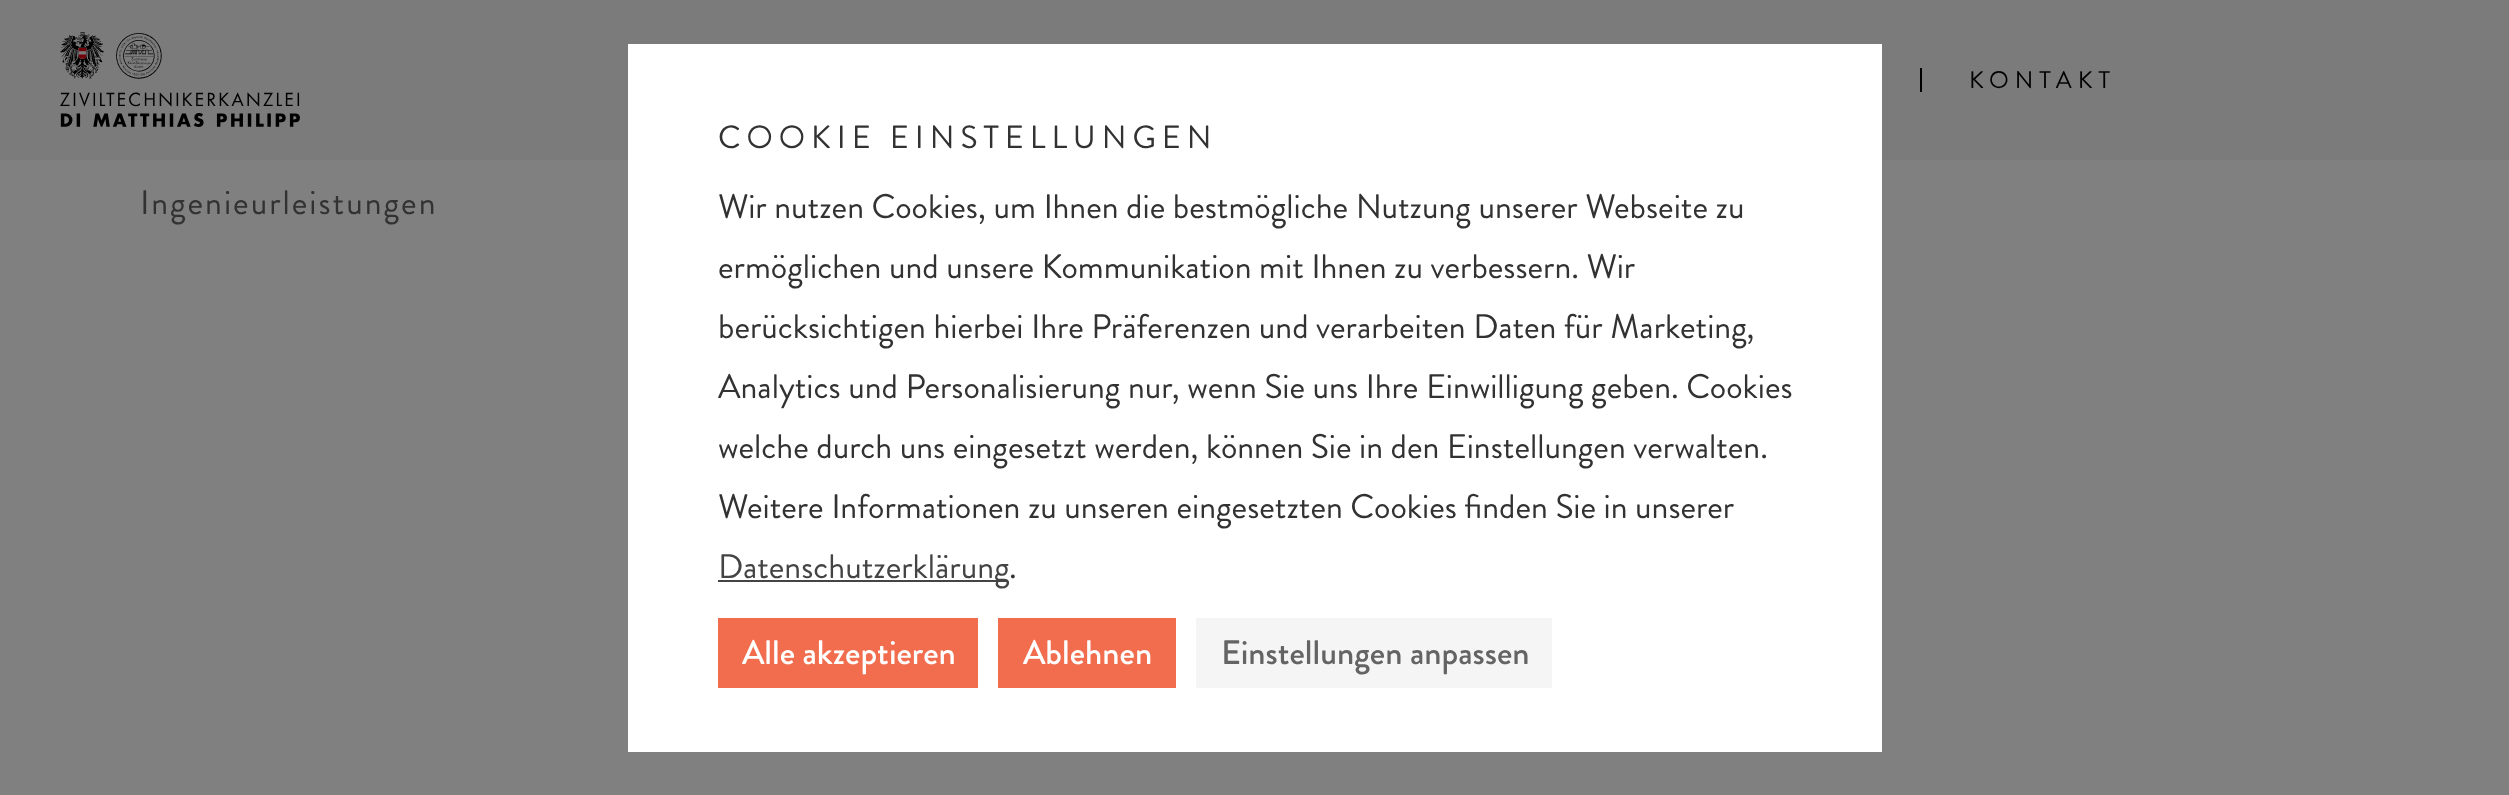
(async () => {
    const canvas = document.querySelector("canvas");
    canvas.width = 2509;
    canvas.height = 795;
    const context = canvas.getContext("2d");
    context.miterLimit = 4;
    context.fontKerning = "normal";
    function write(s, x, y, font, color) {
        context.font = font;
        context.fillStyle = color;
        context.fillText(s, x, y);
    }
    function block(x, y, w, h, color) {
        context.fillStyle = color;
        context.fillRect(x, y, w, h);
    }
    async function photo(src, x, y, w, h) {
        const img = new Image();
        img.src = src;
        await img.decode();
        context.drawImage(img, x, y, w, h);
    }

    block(0, 0, 2509, 795, "rgb(128, 128, 128)");
    block(0, 0, 2509, 160, "rgb(123, 123, 123)");
    await photo("media/1.png", 60, 32, 240, 95);
    block(1920, 68, 2, 24, "rgb(0, 0, 0)");
    context.letterSpacing = "6px";
    write("KONTAKT", 1969, 88, "24px Brandon Grotesque", "rgb(0, 0, 0)");
    context.letterSpacing = "2px";
    write("Ingenieurleistungen", 140, 214, "34px Brandon Grotesque", "rgb(50, 50, 50)");
    block(628, 44, 1254, 708, "rgb(255, 255, 255)");
    context.letterSpacing = "6px";
    write("COOKIE EINSTELLUNGEN", 718, 148, "32px Brandon Grotesque", "rgb(50, 50, 50)");
    context.letterSpacing = "0px";
    write("Wir nutzen Cookies, um Ihnen die bestmögliche Nutzung unserer Webseite zu", 718, 218, "34px Brandon Grotesque", "rgb(50, 50, 50)");
    write("ermöglichen und unsere Kommunikation mit Ihnen zu verbessern. Wir", 718, 278, "34px Brandon Grotesque", "rgb(50, 50, 50)");
    write("berücksichtigen hierbei Ihre Präferenzen und verarbeiten Daten für Marketing,", 718, 338, "34px Brandon Grotesque", "rgb(50, 50, 50)");
    write("Analytics und Personalisierung nur, wenn Sie uns Ihre Einwilligung geben. Cookies", 718, 398, "34px Brandon Grotesque", "rgb(50, 50, 50)");
    write("welche durch uns eingesetzt werden, können Sie in den Einstellungen verwalten.", 718, 458, "34px Brandon Grotesque", "rgb(50, 50, 50)");
    write("Weitere Informationen zu unseren eingesetzten Cookies finden Sie in unserer", 718, 518, "34px Brandon Grotesque", "rgb(50, 50, 50)");
    block(718, 580, 290, 2, "rgb(68, 68, 68)");
    write("Datenschutzerklärung", 718, 578, "34px Brandon Grotesque", "rgb(68, 68, 68)");
    write(".", 1009, 578, "34px Brandon Grotesque", "rgb(50, 50, 50)");
    block(718, 618, 260, 70, "rgb(241, 109, 78)");
    write("Alle akzeptieren", 742, 664, "500 34px Brandon Grotesque", "rgb(255, 255, 255)");
    block(998, 618, 178, 70, "rgb(241, 109, 78)");
    write("Ablehnen", 1023, 664, "500 34px Brandon Grotesque", "rgb(255, 255, 255)");
    block(1196, 618, 356, 70, "rgb(245, 245, 245)");
    write("Einstellungen anpassen", 1221, 664, "500 34px Brandon Grotesque", "rgb(100, 100, 100)");
})();
